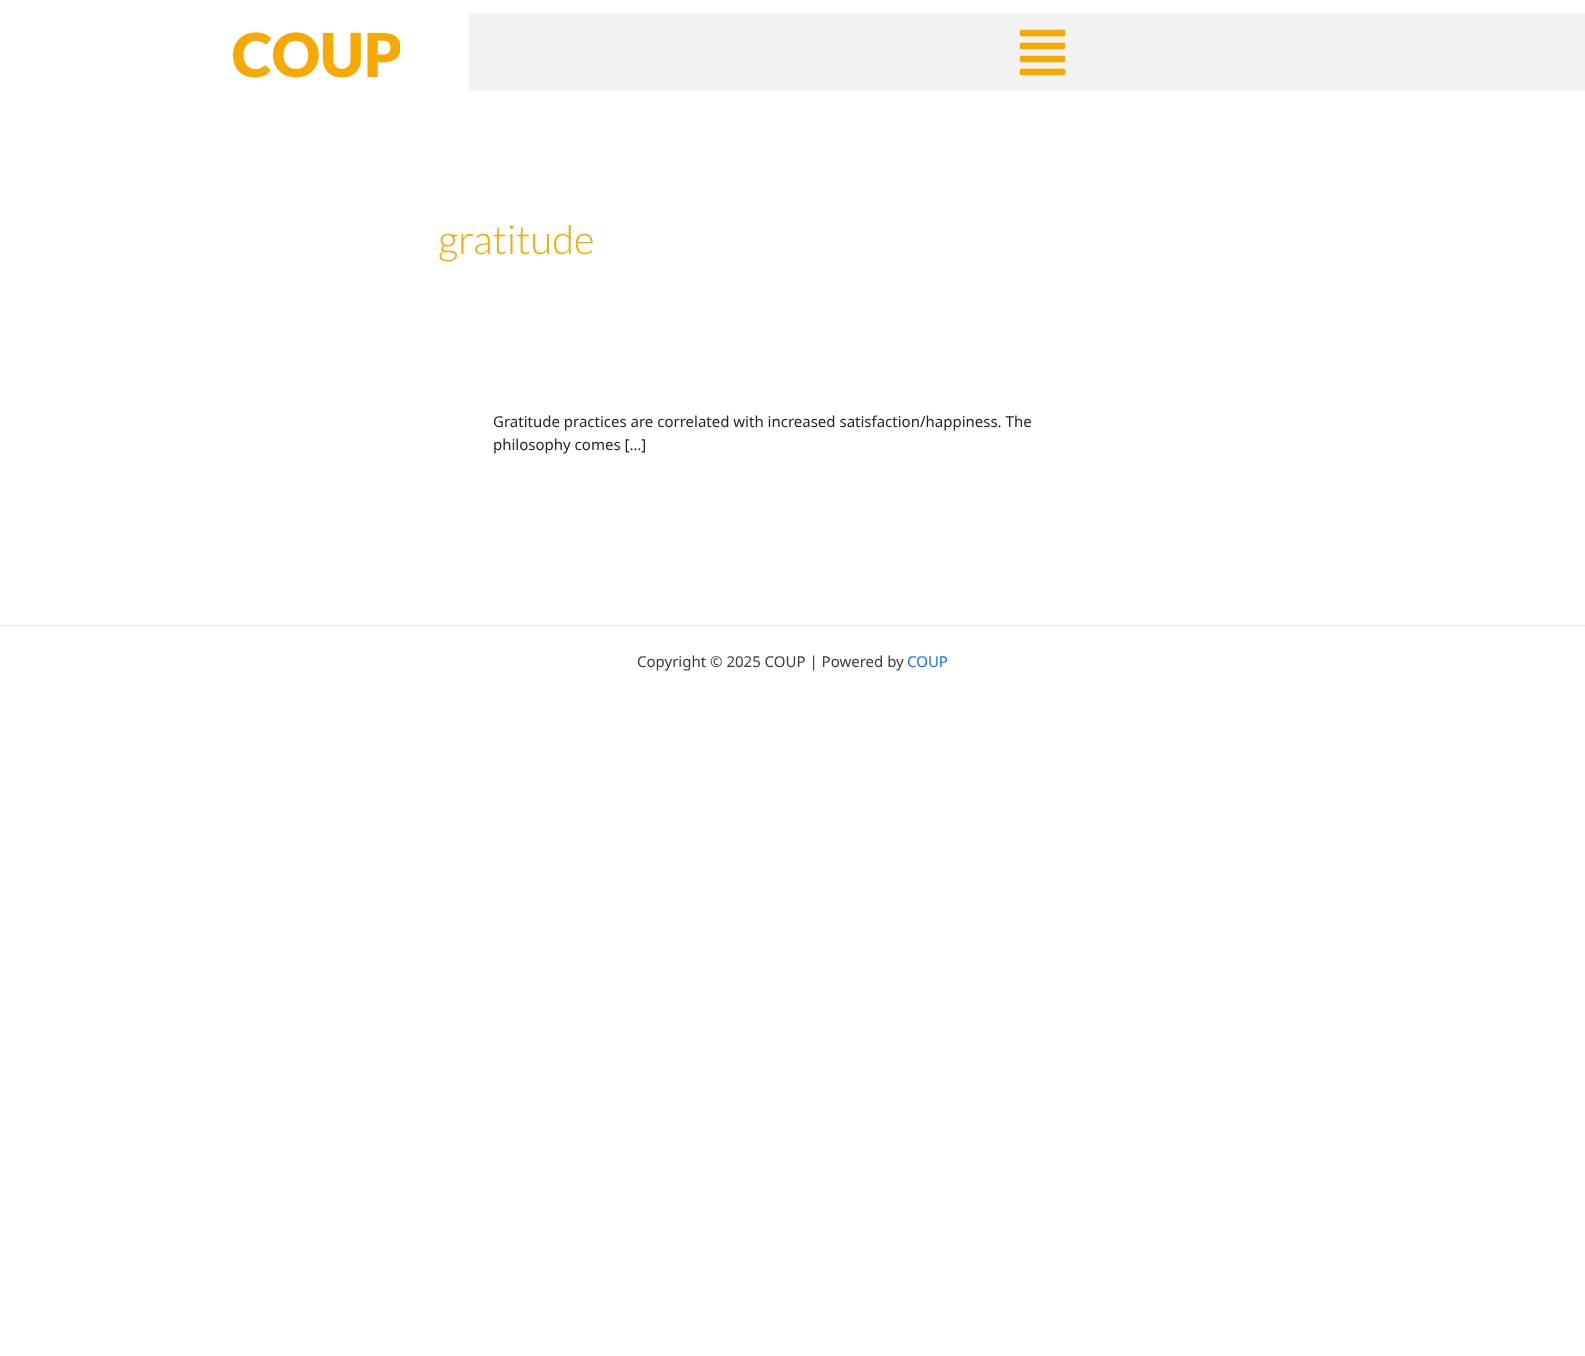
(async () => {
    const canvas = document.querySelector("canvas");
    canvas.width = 1585;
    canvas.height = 1356;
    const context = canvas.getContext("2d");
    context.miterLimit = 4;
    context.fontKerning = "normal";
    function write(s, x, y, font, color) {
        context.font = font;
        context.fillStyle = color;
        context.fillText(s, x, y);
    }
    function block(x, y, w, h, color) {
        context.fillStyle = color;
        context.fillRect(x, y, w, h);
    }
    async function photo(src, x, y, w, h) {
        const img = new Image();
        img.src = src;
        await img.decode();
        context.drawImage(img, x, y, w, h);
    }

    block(0, 0, 1585, 1356, "rgb(255, 255, 255)");
    await photo("media/1.png", 233, 32, 167, 46);
    block(469, 13, 1116, 78, "rgb(242, 242, 242)");
    await photo("media/2.png", 1019, 29, 47, 47);
    write("gratitude", 438, 254, "300 40px Lato", "rgb(247, 169, 0)");
    write("Gratitude practices are correlated with increased satisfaction/happiness. The", 493, 427, "15px Noto Sans", "rgb(33, 37, 41)");
    write("philosophy comes […]", 493, 450, "15px Noto Sans", "rgb(33, 37, 41)");
    block(0, 625, 1585, 1, "rgb(229, 229, 229)");
    write("Copyright © 2025 COUP | Powered by", 637, 667, "15px Noto Sans", "rgb(58, 58, 58)");
    write("COUP", 907, 667, "15px Noto Sans", "rgb(13, 110, 253)");
})();
